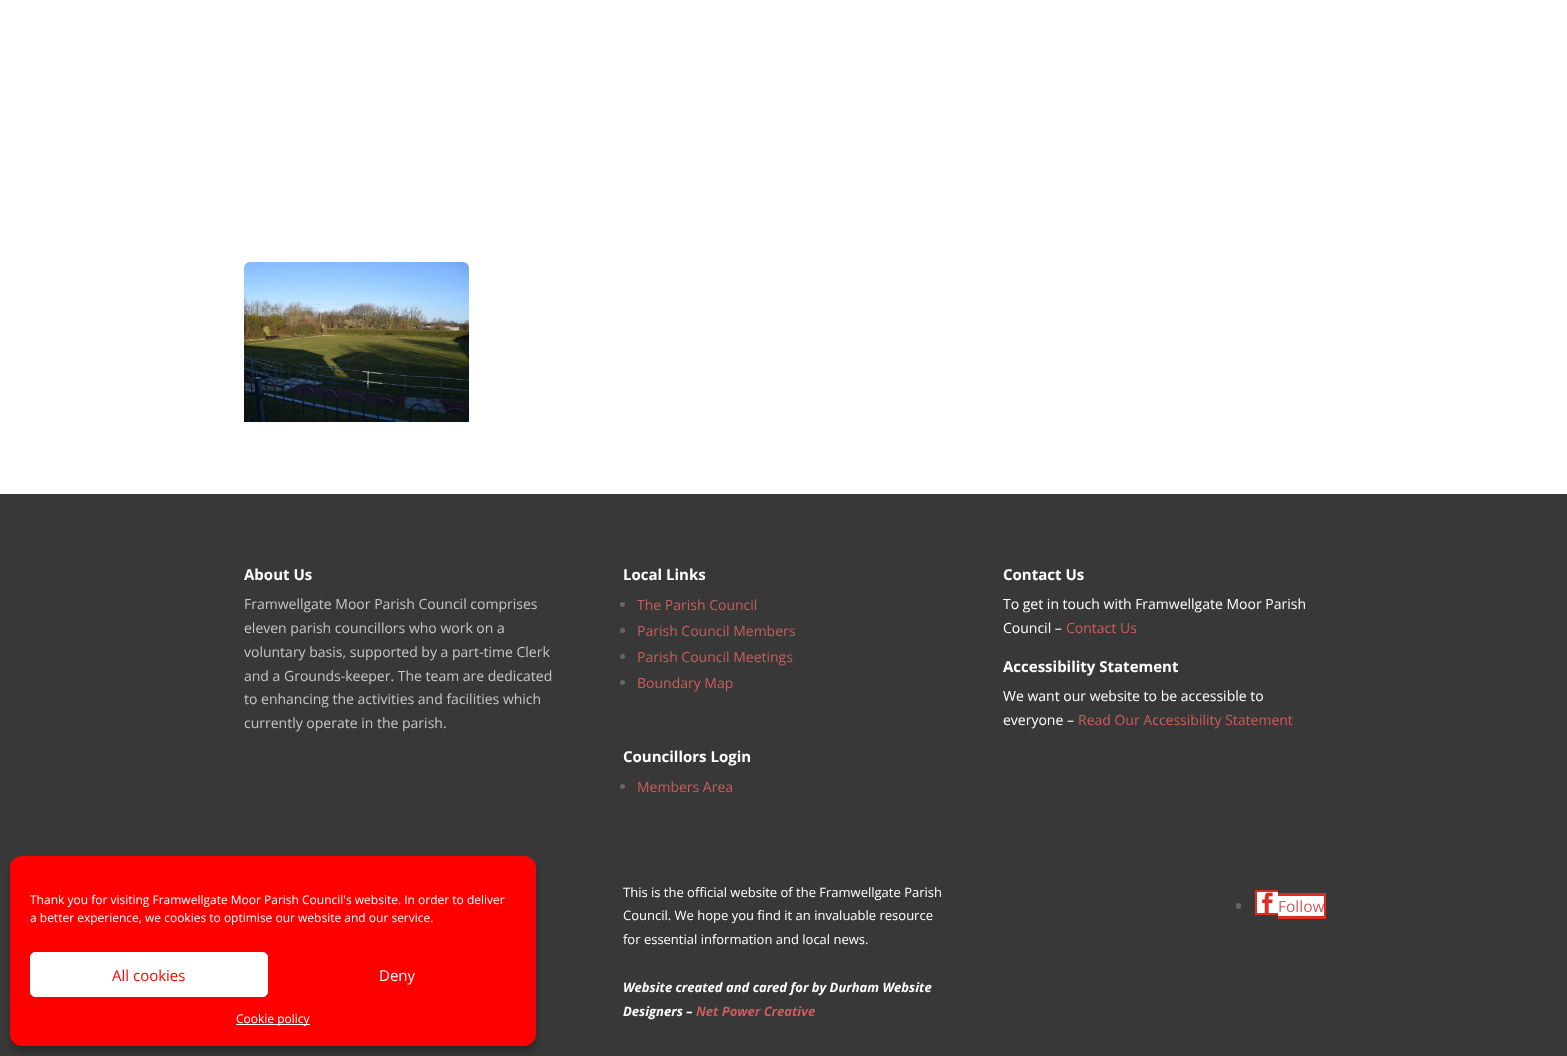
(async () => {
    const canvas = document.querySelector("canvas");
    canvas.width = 1567;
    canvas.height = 1056;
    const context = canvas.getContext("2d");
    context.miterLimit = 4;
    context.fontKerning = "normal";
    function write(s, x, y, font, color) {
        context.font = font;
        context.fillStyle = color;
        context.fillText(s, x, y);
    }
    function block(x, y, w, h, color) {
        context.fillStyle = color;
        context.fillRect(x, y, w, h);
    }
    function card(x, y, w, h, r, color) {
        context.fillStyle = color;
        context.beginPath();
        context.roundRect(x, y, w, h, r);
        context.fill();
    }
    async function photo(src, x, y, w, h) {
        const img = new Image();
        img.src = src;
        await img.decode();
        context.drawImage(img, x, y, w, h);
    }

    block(0, 0, 1567, 1056, "rgb(255, 255, 255)");
    await photo("media/1.png", 244, 262, 225, 160);
    block(0, 494, 1567, 562, "rgb(56, 56, 56)");
    write("About Us", 244, 580, "bold 15px Open Sans", "rgb(255, 255, 255)");
    write("Framwellgate Moor Parish Council comprises", 244, 609, "14px Open Sans", "rgb(198, 198, 198)");
    write("eleven parish councillors who work on a", 244, 633, "14px Open Sans", "rgb(198, 198, 198)");
    write("voluntary basis, supported by a part-time Clerk", 244, 657, "14px Open Sans", "rgb(198, 198, 198)");
    write("and a Grounds-keeper. The team are dedicated", 244, 681, "14px Open Sans", "rgb(198, 198, 198)");
    write("to enhancing the activities and facilities which", 244, 704, "14px Open Sans", "rgb(198, 198, 198)");
    write("currently operate in the parish.", 244, 728, "14px Open Sans", "rgb(198, 198, 198)");
    write("Local Links", 623, 580, "bold 15px Open Sans", "rgb(255, 255, 255)");
    context.fillStyle = "rgb(102, 102, 102)";
    context.beginPath();
    context.arc(622.5, 604.5, 2.5, 0, Math.PI * 2);
    context.fill();
    write("The Parish Council", 637, 610, "14px Open Sans", "rgb(205, 92, 92)");
    context.fillStyle = "rgb(102, 102, 102)";
    context.beginPath();
    context.arc(622.5, 630.5, 2.5, 0, Math.PI * 2);
    context.fill();
    write("Parish Council Members", 637, 636, "14px Open Sans", "rgb(205, 92, 92)");
    context.fillStyle = "rgb(102, 102, 102)";
    context.beginPath();
    context.arc(622.5, 656.5, 2.5, 0, Math.PI * 2);
    context.fill();
    write("Parish Council Meetings", 637, 662, "14px Open Sans", "rgb(205, 92, 92)");
    context.fillStyle = "rgb(102, 102, 102)";
    context.beginPath();
    context.arc(622.5, 682.5, 2.5, 0, Math.PI * 2);
    context.fill();
    write("Boundary Map", 637, 688, "14px Open Sans", "rgb(205, 92, 92)");
    write("Councillors Login", 623, 762, "bold 15px Open Sans", "rgb(255, 255, 255)");
    context.fillStyle = "rgb(102, 102, 102)";
    context.beginPath();
    context.arc(622.5, 786.5, 2.5, 0, Math.PI * 2);
    context.fill();
    write("Members Area", 637, 792, "14px Open Sans", "rgb(205, 92, 92)");
    write("Contact Us", 1003, 580, "bold 15px Open Sans", "rgb(255, 255, 255)");
    write("To get in touch with Framwellgate Moor Parish", 1003, 609, "14px Open Sans", "rgb(255, 255, 255)");
    write("Council –", 1003, 633, "14px Open Sans", "rgb(255, 255, 255)");
    write("Contact Us", 1066, 633, "14px Open Sans", "rgb(205, 92, 92)");
    write("Accessibility Statement", 1003, 672, "bold 15px Open Sans", "rgb(255, 255, 255)");
    write("We want our website to be accessible to", 1003, 701, "14px Open Sans", "rgb(255, 255, 255)");
    write("everyone –", 1003, 725, "14px Open Sans", "rgb(255, 255, 255)");
    write("Read Our Accessibility Statement", 1078, 725, "14px Open Sans", "rgb(205, 92, 92)");
    write("This is the official website of the Framwellgate Parish", 623, 897, "13px Open Sans", "rgb(255, 255, 255)");
    write("Council. We hope you find it an invaluable resource", 623, 920, "13px Open Sans", "rgb(255, 255, 255)");
    write("for essential information and local news.", 623, 944, "13px Open Sans", "rgb(255, 255, 255)");
    write("Website created and cared for by Durham Website", 623, 992, "italic bold 13px Open Sans", "rgb(255, 255, 255)");
    write("Designers –", 623, 1016, "italic bold 13px Open Sans", "rgb(255, 255, 255)");
    write("Net Power Creative", 696, 1016, "italic bold 13px Open Sans", "rgb(205, 92, 92)");
    card(1236, 903, 5, 6, 2.5, "rgb(102, 102, 102)");
    block(1257, 892, 21, 21, "rgb(255, 255, 255)");
    await photo("media/2.png", 1262, 892, 11, 21);
    block(1278, 896, 46, 20, "rgb(255, 255, 255)");
    write("Follow", 1278, 912, "15.5px Open Sans", "rgb(205, 92, 92)");
    block(1255, 890, 23, 2, "rgb(224, 43, 32)");
    block(1255, 913, 23, 2, "rgb(224, 43, 32)");
    block(1255, 890, 2, 25, "rgb(224, 43, 32)");
    block(1278, 893, 48, 3, "rgb(224, 43, 32)");
    block(1324, 893, 2, 26, "rgb(224, 43, 32)");
    block(1278, 916, 48, 3, "rgb(224, 43, 32)");
    context.fillStyle = "rgba(0, 0, 0, 0.23)";
    context.filter = "blur(3px)";
    context.beginPath();
    context.roundRect(10, 862, 526, 190, 12);
    context.fill();
    context.filter = "none";
    card(10, 856, 526, 190, 12, "rgb(255, 0, 0)");
    write("Thank you for visiting Framwellgate Moor Parish Council's website. In order to deliver", 30, 904, "12px Open Sans", "rgb(255, 255, 255)");
    write("a better experience, we cookies to optimise our website and our service.", 30, 922, "12px Open Sans", "rgb(255, 255, 255)");
    context.beginPath();
    context.roundRect(30.5, 952.5, 237, 44, 4.5);
    context.fill();
    context.strokeStyle = "rgb(255, 255, 255)";
    context.stroke();
    write("All cookies", 112, 981, "15px Open Sans", "rgb(255, 0, 0)");
    write("Deny", 379, 981, "15px Open Sans", "rgb(255, 255, 255)");
    block(236, 1024, 74, 1, "rgb(255, 255, 255)");
    write("Cookie policy", 236, 1023, "12px Open Sans", "rgb(255, 255, 255)");
})();
